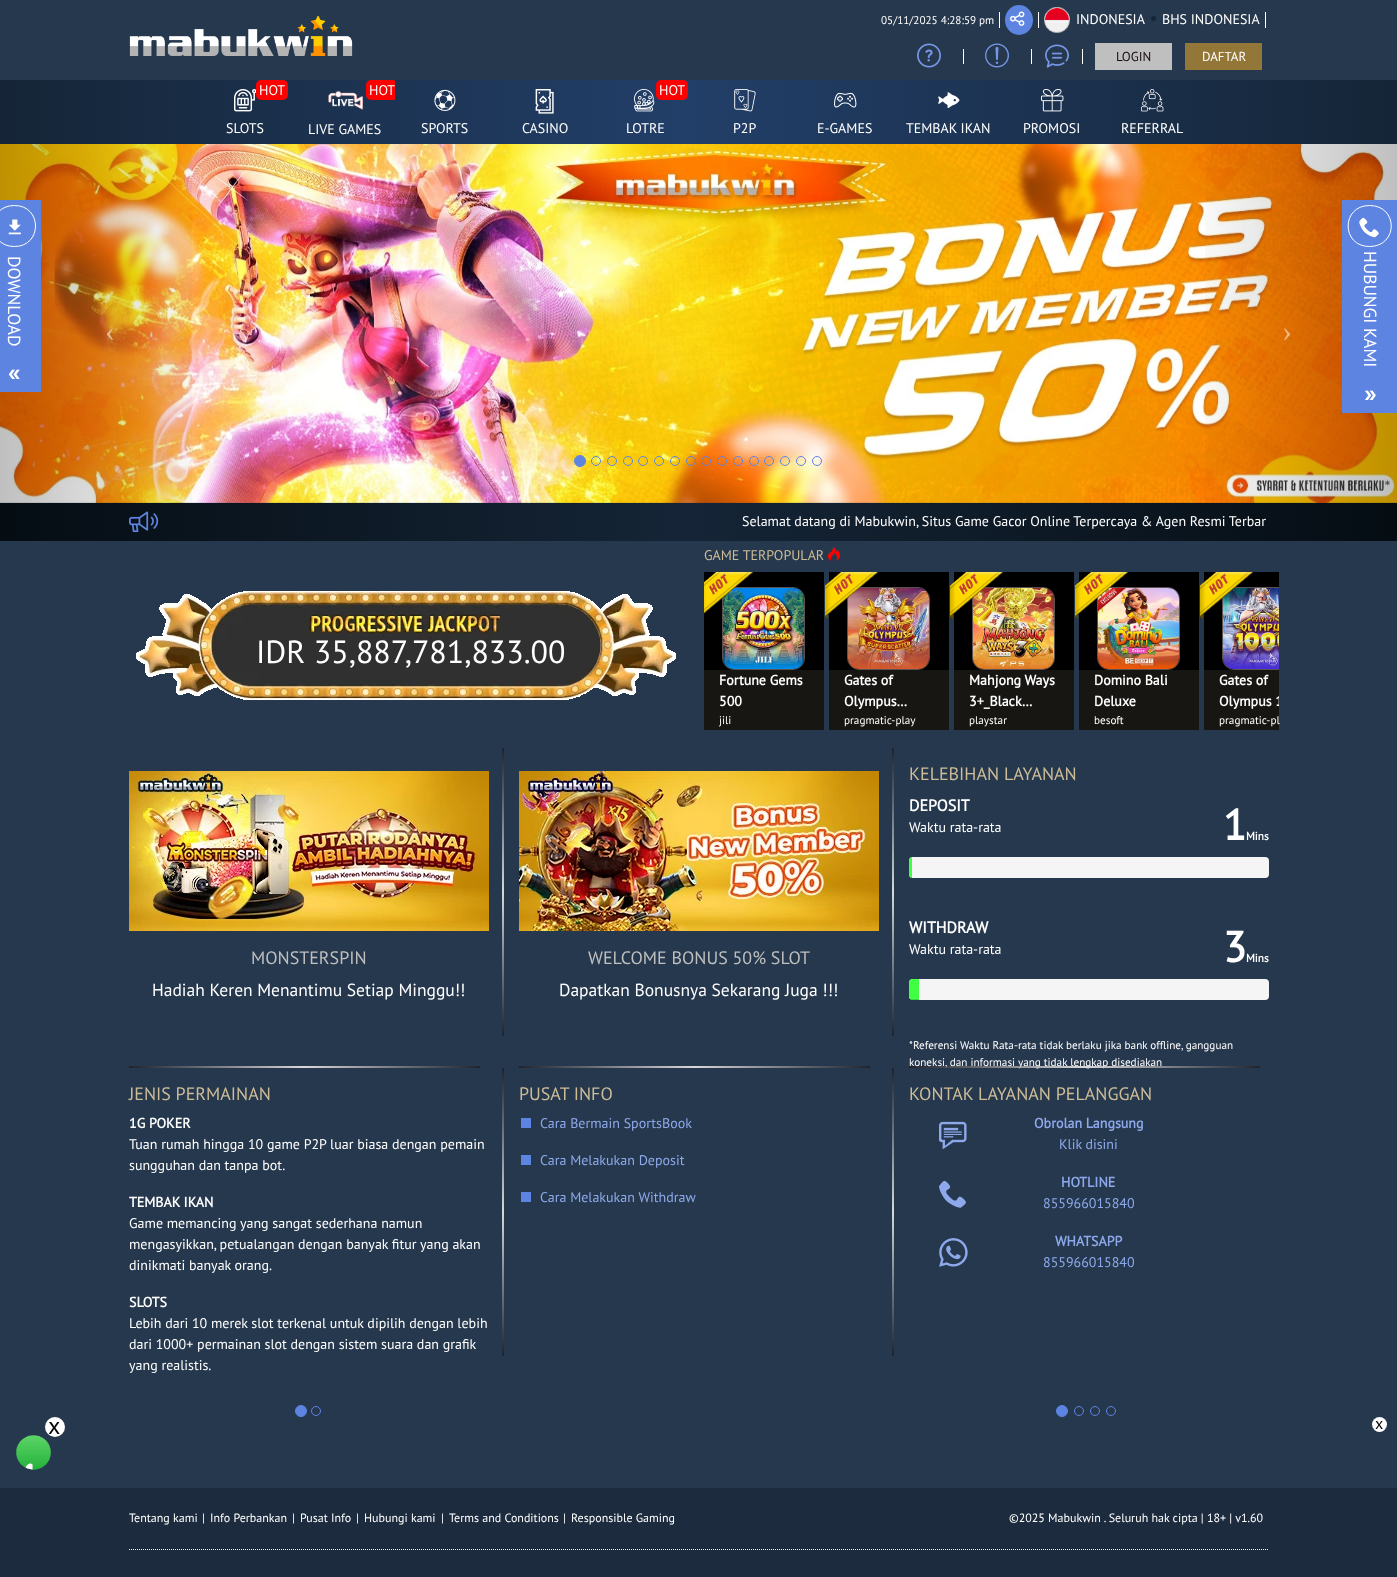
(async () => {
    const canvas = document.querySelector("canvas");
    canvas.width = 1397;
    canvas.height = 1577;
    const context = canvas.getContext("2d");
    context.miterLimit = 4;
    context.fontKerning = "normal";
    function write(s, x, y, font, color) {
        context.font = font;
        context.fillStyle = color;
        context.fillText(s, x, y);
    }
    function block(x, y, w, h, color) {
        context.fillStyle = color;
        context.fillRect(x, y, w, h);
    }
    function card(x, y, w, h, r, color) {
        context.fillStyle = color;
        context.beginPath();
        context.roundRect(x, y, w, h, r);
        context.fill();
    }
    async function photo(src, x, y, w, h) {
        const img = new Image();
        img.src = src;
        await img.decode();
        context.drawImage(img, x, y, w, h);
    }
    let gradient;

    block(0, 0, 1397, 1577, "rgb(38, 56, 77)");
    await photo("media/1.png", 129, 15, 224, 41);
    write("05/11/2025 4:28:59 pm", 881, 24, "11.2px PT Sans", "rgb(255, 255, 255)");
    block(999, 12, 1, 16, "rgb(255, 255, 255)");
    context.fillStyle = "rgb(94, 132, 226)";
    context.beginPath();
    context.ellipse(1019, 20, 14, 15, 0, 0, Math.PI * 2);
    context.fill();
    await photo("media/2.png", 1010, 11, 15, 15);
    block(1038, 12, 1, 16, "rgb(255, 255, 255)");
    await photo("media/3.png", 1044, 7, 26, 26);
    write("INDONESIA", 1076, 24, "14px PT Sans", "rgb(255, 255, 255)");
    context.fillStyle = "rgb(21, 37, 55)";
    context.beginPath();
    context.arc(1153.5, 18.5, 2.5, 0, Math.PI * 2);
    context.fill();
    write("BHS INDONESIA", 1162, 24, "14px PT Sans", "rgb(255, 255, 255)");
    block(1265, 12, 1, 16, "rgb(255, 255, 255)");
    await photo("media/4.png", 917, 43, 24, 25);
    block(963, 49, 1, 15, "rgb(255, 255, 255)");
    await photo("media/5.png", 985, 43, 24, 25);
    block(1031, 49, 1, 15, "rgb(255, 255, 255)");
    await photo("media/6.png", 1045, 44, 24, 24);
    block(1082, 49, 1, 15, "rgb(255, 255, 255)");
    block(1095, 43, 77, 27, "rgb(191, 191, 191)");
    write("LOGIN", 1116, 61, "13px PT Sans", "rgb(24, 13, 13)");
    block(1185, 43, 77, 27, "rgb(146, 119, 57)");
    write("DAFTAR", 1202, 61, "13px PT Sans", "rgb(255, 255, 255)");
    gradient = context.createLinearGradient(0, 112, 1397, 112);
    gradient.addColorStop(0, "rgb(21, 37, 55)");
    gradient.addColorStop(0.49, "rgb(34, 63, 105)");
    gradient.addColorStop(1, "rgb(21, 37, 55)");
    context.fillStyle = gradient;
    context.fillRect(0, 80, 1397, 64);
    await photo("media/7.png", 234, 89, 22, 23);
    card(256, 80, 32, 20, 5, "rgb(255, 0, 0)");
    write("HOT", 259, 95, "14px PT Sans", "rgb(255, 255, 255)");
    write("SLOTS", 226, 133, "14px PT Sans", "rgb(255, 255, 255)");
    await photo("media/8.png", 328, 90, 35, 20);
    context.save();
    context.beginPath();
    context.rect(295, 80, 100, 64);
    context.clip();
    card(366, 80, 32, 20, 5, "rgb(255, 0, 0)");
    context.restore();
    write("HOT", 369, 95, "14px PT Sans", "rgb(255, 255, 255)");
    write("LIVE GAMES", 308, 134, "14px PT Sans", "rgb(255, 255, 255)");
    await photo("media/9.png", 434, 89, 22, 22);
    write("SPORTS", 421, 133, "14px PT Sans", "rgb(255, 255, 255)");
    await photo("media/10.png", 535, 89, 19, 25);
    write("CASINO", 522, 133, "14px PT Sans", "rgb(255, 255, 255)");
    await photo("media/11.png", 634, 89, 21, 23);
    card(656, 80, 32, 20, 5, "rgb(255, 0, 0)");
    write("HOT", 659, 95, "14px PT Sans", "rgb(255, 255, 255)");
    write("LOTRE", 626, 133, "14px PT Sans", "rgb(255, 255, 255)");
    await photo("media/12.png", 734, 89, 22, 23);
    write("P2P", 733, 133, "14px PT Sans", "rgb(255, 255, 255)");
    await photo("media/13.png", 834, 92, 23, 16);
    write("E-GAMES", 817, 133, "14px PT Sans", "rgb(255, 255, 255)");
    await photo("media/14.png", 938, 92, 22, 16);
    write("TEMBAK IKAN", 906, 133, "14px PT Sans", "rgb(255, 255, 255)");
    await photo("media/15.png", 1041, 89, 23, 23);
    write("PROMOSI", 1023, 133, "14px PT Sans", "rgb(255, 255, 255)");
    await photo("media/16.png", 1141, 89, 23, 23);
    write("REFERRAL", 1121, 133, "14px PT Sans", "rgb(255, 255, 255)");
    block(0, 1488, 1397, 89, "rgb(28, 43, 61)");
    await photo("media/21.png", 0, 144, 1397, 359);
    gradient = context.createLinearGradient(0, 324, 210, 324);
    gradient.addColorStop(0, "rgba(0, 0, 0, 0.25)");
    gradient.addColorStop(1, "rgba(0, 0, 0, 0)");
    context.fillStyle = gradient;
    context.fillRect(0, 144, 192, 359);
    block(0, 200, 41, 192, "rgb(94, 132, 226)");
    context.beginPath();
    context.moveTo(14.5, 205.5);
    context.bezierCurveTo(42.5, 205.5, 42.5, 246.5, 14.5, 246.5);
    context.bezierCurveTo(-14, 246.5, -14, 205.5, 14.5, 205.5);
    context.closePath();
    context.strokeStyle = "rgb(255, 255, 255)";
    context.stroke();
    await photo("media/17.png", 8, 219, 13, 16);
    context.font = "17.5px PT Sans";
    context.fillStyle = "rgb(255, 255, 255)";
    context.save();
    context.translate(8, 256);
    context.rotate(90 * Math.PI / 180);
    context.fillText("DOWNLOAD", 0, 0);
    context.restore();
    await photo("media/18.png", 8, 369, 12, 10);
    gradient = context.createLinearGradient(1187, 324, 1397, 324);
    gradient.addColorStop(0, "rgba(0, 0, 0, 0)");
    gradient.addColorStop(1, "rgba(0, 0, 0, 0.25)");
    context.fillStyle = gradient;
    context.fillRect(1205, 144, 192, 359);
    block(1342, 200, 55, 213, "rgb(94, 132, 226)");
    context.beginPath();
    context.moveTo(1369.5, 205.5);
    context.bezierCurveTo(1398.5, 205.5, 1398.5, 246.5, 1369.5, 246.5);
    context.bezierCurveTo(1341, 246.5, 1341, 205.5, 1369.5, 205.5);
    context.closePath();
    context.stroke();
    await photo("media/19.png", 1359, 217, 20, 21);
    context.fillStyle = "rgb(255, 255, 255)";
    context.save();
    context.translate(1364, 251);
    context.rotate(90 * Math.PI / 180);
    context.fillText("HUBUNGI KAMI", 0, 0);
    context.restore();
    await photo("media/20.png", 1365, 390, 11, 10);
    write("Tentang kami", 129, 1522, "12px PT Sans", "rgb(255, 255, 255)");
    write("|", 202, 1522, "12px PT Sans", "rgb(255, 255, 255)");
    write("Info Perbankan", 210, 1522, "12px PT Sans", "rgb(255, 255, 255)");
    write("|", 292, 1522, "12px PT Sans", "rgb(255, 255, 255)");
    write("Pusat Info", 300, 1522, "12px PT Sans", "rgb(255, 255, 255)");
    write("|", 356, 1522, "12px PT Sans", "rgb(255, 255, 255)");
    write("Hubungi kami", 364, 1522, "12px PT Sans", "rgb(255, 255, 255)");
    write("|", 441, 1522, "12px PT Sans", "rgb(255, 255, 255)");
    write("Terms and Conditions", 449, 1522, "12px PT Sans", "rgb(255, 255, 255)");
    write("|", 563, 1522, "12px PT Sans", "rgb(255, 255, 255)");
    write("Responsible Gaming", 571, 1522, "12px PT Sans", "rgb(255, 255, 255)");
    write("©2025 Mabukwin . Seluruh hak cipta | 18+ | v1.60", 1009, 1522, "12px PT Sans", "rgb(255, 255, 255)");
    context.beginPath();
    context.moveTo(129, 1549.5);
    context.lineTo(1269, 1549.5);
    context.setLineDash([1, 1]);
    context.stroke();
    write("‹", 105, 341, "30px Liberation Serif", "rgb(227, 184, 142)");
    write("›", 1282, 341, "30px Liberation Serif", "rgb(239, 183, 129)");
    context.fillStyle = "rgb(94, 132, 226)";
    context.beginPath();
    context.arc(580, 461, 5.5, 0, Math.PI * 2);
    context.fill();
    context.strokeStyle = "rgb(94, 132, 226)";
    context.setLineDash([]);
    context.stroke();
    context.beginPath();
    context.arc(596, 461, 4.5, 0, Math.PI * 2);
    context.stroke();
    context.beginPath();
    context.arc(612, 461, 4.5, 0, Math.PI * 2);
    context.stroke();
    context.beginPath();
    context.arc(628, 461, 4.5, 0, Math.PI * 2);
    context.stroke();
    context.beginPath();
    context.arc(643, 461, 4.5, 0, Math.PI * 2);
    context.stroke();
    context.beginPath();
    context.arc(659, 461, 4.5, 0, Math.PI * 2);
    context.stroke();
    context.beginPath();
    context.arc(675, 461, 4.5, 0, Math.PI * 2);
    context.stroke();
    context.beginPath();
    context.arc(691, 461, 4.5, 0, Math.PI * 2);
    context.stroke();
    context.beginPath();
    context.arc(706, 461, 4.5, 0, Math.PI * 2);
    context.stroke();
    context.beginPath();
    context.arc(722, 461, 4.5, 0, Math.PI * 2);
    context.stroke();
    context.beginPath();
    context.arc(738, 461, 4.5, 0, Math.PI * 2);
    context.stroke();
    context.beginPath();
    context.arc(754, 461, 4.5, 0, Math.PI * 2);
    context.stroke();
    context.beginPath();
    context.arc(769, 461, 4.5, 0, Math.PI * 2);
    context.stroke();
    context.beginPath();
    context.arc(785, 461, 4.5, 0, Math.PI * 2);
    context.stroke();
    context.beginPath();
    context.arc(801, 461, 4.5, 0, Math.PI * 2);
    context.stroke();
    context.beginPath();
    context.arc(817, 461, 4.5, 0, Math.PI * 2);
    context.stroke();
    gradient = context.createLinearGradient(0, 522, 1397, 522);
    gradient.addColorStop(0, "rgb(5, 13, 19)");
    gradient.addColorStop(0.49, "rgb(21, 37, 55)");
    gradient.addColorStop(1, "rgb(5, 13, 19)");
    context.fillStyle = gradient;
    context.fillRect(0, 503, 1397, 38);
    await photo("media/22.png", 129, 511, 30, 22);
    write("Selamat datang di Mabukwin, Situs Game Gacor Online Terpercaya & Agen Resmi Terbar", 742, 526, "14px PT Sans", "rgb(255, 255, 255)");
    await photo("media/23.png", 136, 591, 540, 109);
    write("IDR 35,887,781,833.00", 256, 663, "32px PT Sans", "rgb(255, 255, 255)");
    write("GAME TERPOPULAR", 704, 560, "14px PT Sans", "rgb(204, 188, 152)");
    await photo("media/24.png", 828, 547, 13, 14);
    block(704, 572, 120, 98, "rgb(0, 0, 0)");
    context.beginPath();
    context.roundRect(722.5, 587.5, 82, 82, 11.5);
    context.strokeStyle = "rgb(92, 82, 82)";
    context.stroke();
    await photo("media/31.png", 723, 588, 81, 81);
    await photo("media/25.png", 704, 572, 49, 42);
    block(829, 572, 120, 98, "rgb(0, 0, 0)");
    context.beginPath();
    context.roundRect(847.5, 587.5, 82, 82, 11.5);
    context.stroke();
    await photo("media/33.png", 848, 588, 81, 81);
    await photo("media/26.png", 825, 572, 53, 47);
    block(954, 572, 120, 98, "rgb(0, 0, 0)");
    context.beginPath();
    context.roundRect(972.5, 587.5, 82, 82, 11.5);
    context.stroke();
    await photo("media/35.png", 973, 588, 81, 81);
    await photo("media/27.png", 950, 572, 53, 47);
    block(1079, 572, 120, 98, "rgb(0, 0, 0)");
    context.beginPath();
    context.roundRect(1097.5, 587.5, 82, 82, 11.5);
    context.stroke();
    await photo("media/37.png", 1098, 588, 81, 81);
    await photo("media/28.png", 1075, 572, 53, 47);
    block(1204, 572, 75, 98, "rgb(0, 0, 0)");
    context.save();
    context.beginPath();
    context.rect(704, 572, 575, 171);
    context.clip();
    context.beginPath();
    context.roundRect(1222.5, 587.5, 82, 82, 11.5);
    context.stroke();
    context.restore();
    await photo("media/39.png", 1223, 588, 56, 81);
    await photo("media/29.png", 1200, 572, 53, 47);
    await photo("media/30.png", 704, 572, 49, 42);
    block(704, 670, 120, 60, "rgb(23, 22, 19)");
    write("Fortune Gems", 719, 685, "bold 14px PT Sans", "rgb(255, 255, 255)");
    write("500", 719, 706, "bold 14px PT Sans", "rgb(255, 255, 255)");
    write("jili", 719, 724, "11.2px PT Sans", "rgb(255, 255, 255)");
    await photo("media/32.png", 825, 572, 53, 47);
    block(829, 670, 120, 60, "rgb(23, 22, 19)");
    write("Gates of", 844, 685, "bold 14px PT Sans", "rgb(255, 255, 255)");
    write("Olympus…", 844, 706, "bold 14px PT Sans", "rgb(255, 255, 255)");
    write("pragmatic-play", 844, 724, "11.2px PT Sans", "rgb(255, 255, 255)");
    await photo("media/34.png", 950, 572, 53, 47);
    block(954, 670, 120, 60, "rgb(23, 22, 19)");
    write("Mahjong Ways", 969, 685, "bold 14px PT Sans", "rgb(255, 255, 255)");
    write("3+_Black…", 969, 706, "bold 14px PT Sans", "rgb(255, 255, 255)");
    write("playstar", 969, 724, "11.2px PT Sans", "rgb(255, 255, 255)");
    await photo("media/36.png", 1075, 572, 53, 47);
    block(1079, 670, 120, 60, "rgb(23, 22, 19)");
    write("Domino Bali", 1094, 685, "bold 14px PT Sans", "rgb(255, 255, 255)");
    write("Deluxe", 1094, 706, "bold 14px PT Sans", "rgb(255, 255, 255)");
    write("besoft", 1094, 724, "11.2px PT Sans", "rgb(255, 255, 255)");
    await photo("media/38.png", 1200, 572, 53, 47);
    block(1204, 670, 75, 60, "rgb(23, 22, 19)");
    write("Gates of", 1219, 685, "bold 14px PT Sans", "rgb(255, 255, 255)");
    context.save();
    context.beginPath();
    context.rect(1219, 670, 60, 42);
    context.clip();
    write("Olympus 1", 1219, 706, "bold 14px PT Sans", "rgb(255, 255, 255)");
    context.restore();
    write("pragmatic-pl", 1219, 724, "11.2px PT Sans", "rgb(255, 255, 255)");
    await photo("media/40.png", 129, 771, 360, 160);
    write("MONSTERSPIN", 251, 964, "18px PT Sans", "rgb(191, 191, 191)");
    write("Hadiah Keren Menantimu Setiap Minggu!!", 152, 996, "17.5px PT Sans", "rgb(255, 255, 255)");
    await photo("media/41.png", 502, 748, 2, 288);
    await photo("media/42.png", 129, 1066, 351, 2);
    await photo("media/43.png", 519, 771, 360, 160);
    write("WELCOME BONUS 50% SLOT", 588, 964, "18px PT Sans", "rgb(191, 191, 191)");
    write("Dapatkan Bonusnya Sekarang Juga !!!", 559, 996, "17.5px PT Sans", "rgb(255, 255, 255)");
    await photo("media/44.png", 892, 748, 2, 288);
    await photo("media/45.png", 519, 1066, 351, 2);
    write("KELEBIHAN LAYANAN", 909, 780, "18px PT Sans", "rgb(204, 188, 152)");
    write("DEPOSIT", 909, 811, "bold 16px PT Sans", "rgb(255, 255, 255)");
    write("Waktu rata-rata", 909, 832, "14px PT Sans", "rgb(255, 255, 255)");
    write("1", 1223, 840, "bold 43px PT Sans", "rgb(255, 255, 255)");
    write("Mins", 1246, 840, "bold 11.2px PT Sans", "rgb(255, 255, 255)");
    card(909, 857, 360, 21, 4, "rgb(245, 245, 245)");
    context.save();
    context.beginPath();
    context.roundRect(909, 857, 360, 21, 4);
    context.clip();
    block(909, 857, 3, 21, "rgb(64, 254, 65)");
    block(909, 877, 3, 1, "rgb(86, 196, 90)");
    context.restore();
    write("WITHDRAW", 909, 933, "bold 16px PT Sans", "rgb(255, 255, 255)");
    write("Waktu rata-rata", 909, 954, "14px PT Sans", "rgb(255, 255, 255)");
    write("3", 1223, 962, "bold 43px PT Sans", "rgb(255, 255, 255)");
    write("Mins", 1246, 962, "bold 11.2px PT Sans", "rgb(255, 255, 255)");
    card(909, 979, 360, 21, 4, "rgb(245, 245, 245)");
    context.fillStyle = "rgb(64, 254, 65)";
    context.beginPath();
    context.roundRect(909, 979, 10, 21, [4, 0, 0, 4]);
    context.fill();
    block(909, 999, 10, 1, "rgba(0, 0, 0, 0.15)");
    write("*Referensi Waktu Rata-rata tidak berlaku jika bank offline, gangguan", 909, 1049, "11.2px PT Sans", "rgb(255, 255, 255)");
    write("koneksi, dan informasi yang tidak lengkap disediakan", 909, 1066, "11.2px PT Sans", "rgb(255, 255, 255)");
    await photo("media/46.png", 909, 1066, 351, 2);
    write("JENIS PERMAINAN", 129, 1100, "18px PT Sans", "rgb(204, 188, 152)");
    await photo("media/47.png", 502, 1068, 2, 288);
    write("1G POKER", 129, 1128, "bold 14px PT Sans", "rgb(255, 255, 255)");
    write("Tuan rumah hingga 10 game P2P luar biasa dengan pemain", 129, 1149, "14px PT Sans", "rgb(255, 255, 255)");
    write("sungguhan dan tanpa bot.", 129, 1170, "14px PT Sans", "rgb(255, 255, 255)");
    write("TEMBAK IKAN", 129, 1207, "bold 14px PT Sans", "rgb(255, 255, 255)");
    write("Game memancing yang sangat sederhana namun", 129, 1228, "14px PT Sans", "rgb(255, 255, 255)");
    write("mengasyikkan, petualangan dengan banyak fitur yang akan", 129, 1249, "14px PT Sans", "rgb(255, 255, 255)");
    write("dinikmati banyak orang.", 129, 1270, "14px PT Sans", "rgb(255, 255, 255)");
    write("SLOTS", 129, 1307, "bold 14px PT Sans", "rgb(255, 255, 255)");
    write("Lebih dari 10 merek slot terkenal untuk dipilih dengan lebih", 129, 1328, "14px PT Sans", "rgb(255, 255, 255)");
    write("dari 1000+ permainan slot dengan sistem suara dan grafik", 129, 1349, "14px PT Sans", "rgb(255, 255, 255)");
    write("yang realistis.", 129, 1370, "14px PT Sans", "rgb(255, 255, 255)");
    context.fillStyle = "rgb(94, 132, 226)";
    context.beginPath();
    context.arc(301, 1411, 5.5, 0, Math.PI * 2);
    context.fill();
    context.strokeStyle = "rgb(94, 132, 226)";
    context.stroke();
    context.beginPath();
    context.arc(316, 1411, 4.5, 0, Math.PI * 2);
    context.stroke();
    write("PUSAT INFO", 519, 1100, "18px PT Sans", "rgb(204, 188, 152)");
    await photo("media/48.png", 892, 1068, 2, 288);
    block(521, 1118, 10, 10, "rgb(94, 132, 226)");
    write("Cara Bermain SportsBook", 540, 1128, "14px PT Sans", "rgb(142, 169, 235)");
    block(521, 1155, 10, 10, "rgb(94, 132, 226)");
    write("Cara Melakukan Deposit", 540, 1165, "14px PT Sans", "rgb(142, 169, 235)");
    block(521, 1192, 10, 10, "rgb(94, 132, 226)");
    write("Cara Melakukan Withdraw", 540, 1202, "14px PT Sans", "rgb(142, 169, 235)");
    write("KONTAK LAYANAN PELANGGAN", 909, 1100, "18px PT Sans", "rgb(204, 188, 152)");
    await photo("media/49.png", 939, 1121, 28, 29);
    write("Obrolan Langsung", 1034, 1128, "bold 14px PT Sans", "rgb(142, 169, 235)");
    write("Klik disini", 1059, 1149, "14px PT Sans", "rgb(142, 169, 235)");
    await photo("media/50.png", 939, 1180, 27, 28);
    write("HOTLINE", 1061, 1187, "bold 14px PT Sans", "rgb(142, 169, 235)");
    write("855966015840", 1043, 1208, "14px PT Sans", "rgb(142, 169, 235)");
    await photo("media/51.png", 939, 1238, 29, 29);
    write("WHATSAPP", 1055, 1246, "bold 14px PT Sans", "rgb(142, 169, 235)");
    write("855966015840", 1043, 1267, "14px PT Sans", "rgb(142, 169, 235)");
    context.fillStyle = "rgb(94, 132, 226)";
    context.beginPath();
    context.arc(1062, 1411, 5.5, 0, Math.PI * 2);
    context.fill();
    context.stroke();
    context.beginPath();
    context.arc(1079, 1411, 4.5, 0, Math.PI * 2);
    context.stroke();
    context.beginPath();
    context.arc(1095, 1411, 4.5, 0, Math.PI * 2);
    context.stroke();
    context.beginPath();
    context.arc(1111, 1411, 4.5, 0, Math.PI * 2);
    context.stroke();
    await photo("media/52.png", 16, 1435, 35, 35);
    context.fillStyle = "rgb(255, 255, 255)";
    context.beginPath();
    context.arc(55, 1427, 10, 0, Math.PI * 2);
    context.fill();
    write("x", 48, 1434, "24px PT Sans", "rgb(0, 0, 0)");
    context.fillStyle = "rgb(255, 255, 255)";
    context.beginPath();
    context.arc(1379.5, 1424.5, 7.5, 0, Math.PI * 2);
    context.fill();
    write("x", 1375, 1429, "16px PT Sans", "rgb(0, 0, 0)");
})();
